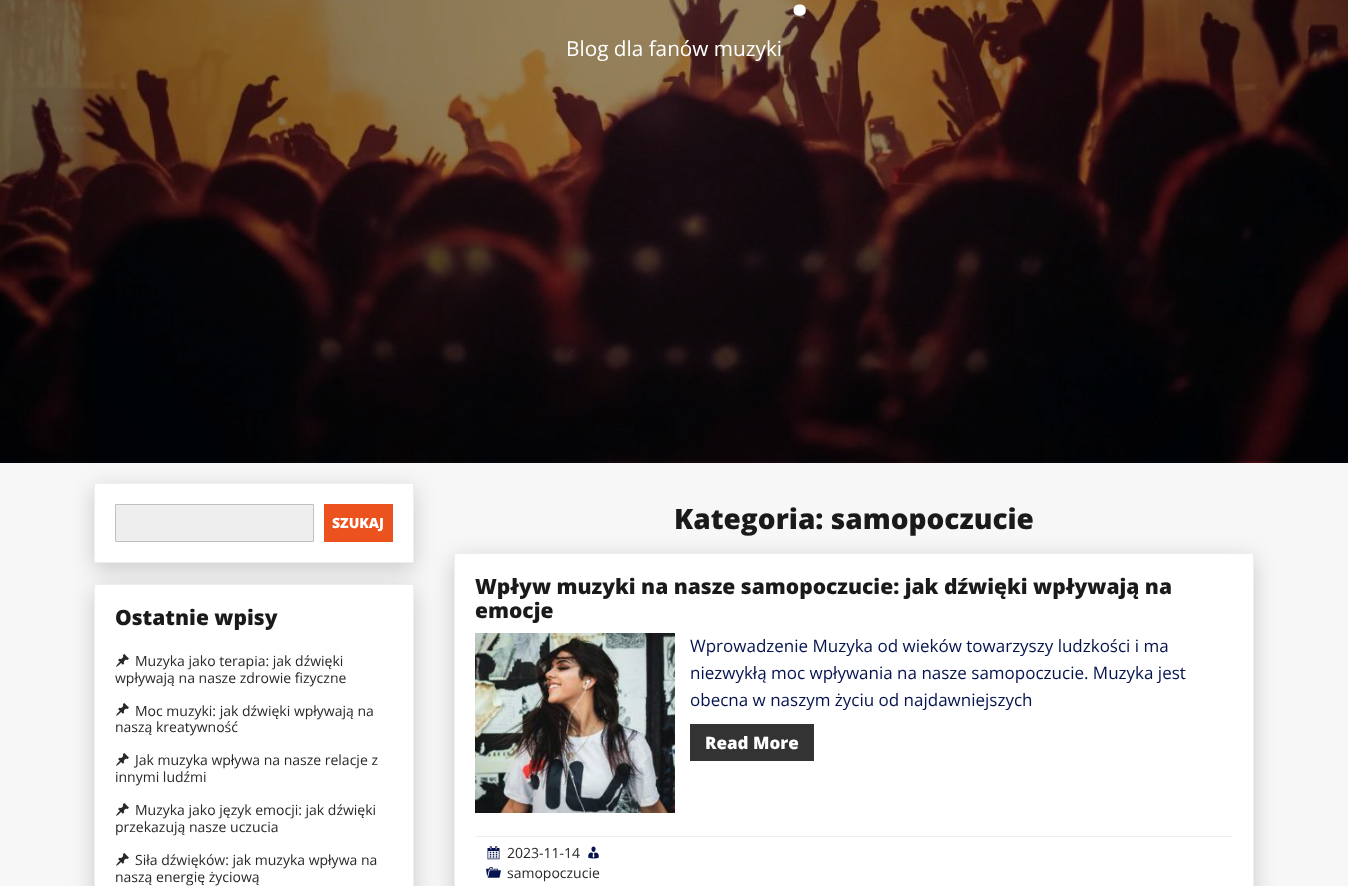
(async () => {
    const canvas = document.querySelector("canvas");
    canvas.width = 1348;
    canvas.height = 886;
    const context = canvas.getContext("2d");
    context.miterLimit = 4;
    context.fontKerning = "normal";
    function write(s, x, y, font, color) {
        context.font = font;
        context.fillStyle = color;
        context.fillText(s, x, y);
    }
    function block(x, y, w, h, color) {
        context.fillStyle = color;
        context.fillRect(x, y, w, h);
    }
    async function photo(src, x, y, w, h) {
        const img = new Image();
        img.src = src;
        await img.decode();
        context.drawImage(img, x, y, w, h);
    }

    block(0, 0, 1348, 886, "rgb(247, 247, 247)");
    context.fillStyle = "rgba(0, 0, 0, 0.18)";
    context.filter = "blur(11px)";
    context.beginPath();
    context.rect(94, 489, 320, 80);
    context.fill();
    context.filter = "none";
    await photo("media/1.png", 0, 0, 1348, 463);
    write(".", 791, 15, "800 60px Open Sans", "rgb(255, 255, 255)");
    write("Blog dla fanów muzyki", 566, 56, "20.75px Open Sans", "rgb(255, 255, 255)");
    context.beginPath();
    context.rect(94.5, 483.5, 319, 79);
    context.fill();
    context.strokeStyle = "rgb(238, 238, 238)";
    context.stroke();
    context.fillStyle = "rgb(238, 238, 238)";
    context.beginPath();
    context.rect(115.5, 504.5, 198, 37);
    context.fill();
    context.strokeStyle = "rgb(192, 192, 192)";
    context.stroke();
    block(324, 504, 69, 38, "rgb(236, 82, 30)");
    write("SZUKAJ", 332, 528, "800 14px Open Sans", "rgb(255, 255, 255)");
    context.fillStyle = "rgba(0, 0, 0, 0.18)";
    context.filter = "blur(11px)";
    context.beginPath();
    context.rect(94, 590, 320, 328);
    context.fill();
    context.filter = "none";
    context.fillStyle = "rgb(255, 255, 255)";
    context.beginPath();
    context.rect(94.5, 584.5, 319, 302);
    context.fill();
    context.strokeStyle = "rgb(238, 238, 238)";
    context.stroke();
    write("Ostatnie wpisy", 115, 625, "800 21px Open Sans", "rgb(26, 26, 26)");
    await photo("media/2.png", 116, 654, 13, 13);
    write("Muzyka jako terapia: jak dźwięki", 135, 666, "14px Open Sans", "rgb(40, 40, 40)");
    write("wpływają na nasze zdrowie fizyczne", 115, 683, "14px Open Sans", "rgb(40, 40, 40)");
    await photo("media/2.png", 116, 703, 13, 13);
    write("Moc muzyki: jak dźwięki wpływają na", 135, 716, "14px Open Sans", "rgb(40, 40, 40)");
    write("naszą kreatywność", 115, 732, "14px Open Sans", "rgb(40, 40, 40)");
    await photo("media/2.png", 116, 753, 13, 13);
    write("Jak muzyka wpływa na nasze relacje z", 135, 765, "14px Open Sans", "rgb(40, 40, 40)");
    write("innymi ludźmi", 115, 782, "14px Open Sans", "rgb(40, 40, 40)");
    await photo("media/2.png", 116, 803, 13, 13);
    write("Muzyka jako język emocji: jak dźwięki", 135, 815, "14px Open Sans", "rgb(40, 40, 40)");
    write("przekazują nasze uczucia", 115, 832, "14px Open Sans", "rgb(40, 40, 40)");
    await photo("media/2.png", 116, 853, 13, 13);
    write("Siła dźwięków: jak muzyka wpływa na", 135, 865, "14px Open Sans", "rgb(40, 40, 40)");
    write("naszą energię życiową", 115, 882, "14px Open Sans", "rgb(40, 40, 40)");
    write("Kategoria: samopoczucie", 674, 529, "800 28px Open Sans", "rgb(26, 26, 26)");
    context.fillStyle = "rgba(0, 0, 0, 0.18)";
    context.filter = "blur(11px)";
    context.beginPath();
    context.rect(454, 559, 800, 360);
    context.fill();
    context.filter = "none";
    context.fillStyle = "rgb(255, 255, 255)";
    context.beginPath();
    context.rect(454.5, 553.5, 799, 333);
    context.fill();
    context.stroke();
    write("Wpływ muzyki na nasze samopoczucie: jak dźwięki wpływają na", 475, 594, "800 21px Open Sans", "rgb(26, 26, 26)");
    write("emocje", 475, 618, "800 21px Open Sans", "rgb(26, 26, 26)");
    await photo("media/3.png", 475, 633, 200, 180);
    write("Wprowadzenie Muzyka od wieków towarzyszy ludzkości i ma", 690, 652, "17px Open Sans", "rgb(4, 19, 78)");
    write("niezwykłą moc wpływania na nasze samopoczucie. Muzyka jest", 690, 679, "17px Open Sans", "rgb(4, 19, 78)");
    write("obecna w naszym życiu od najdawniejszych", 690, 706, "17px Open Sans", "rgb(4, 19, 78)");
    block(690, 724, 124, 37, "rgb(51, 51, 51)");
    write("Read More", 705, 749, "800 17px Open Sans", "rgb(255, 255, 255)");
    block(475, 836, 758, 1, "rgb(238, 238, 238)");
    await photo("media/4.png", 487, 846, 13, 14);
    write("2023-11-14", 507, 858, "14px Open Sans", "rgb(40, 40, 40)");
    await photo("media/5.png", 588, 846, 11, 13);
    await photo("media/6.png", 486, 867, 15, 11);
    write("samopoczucie", 507, 878, "14px Open Sans", "rgb(40, 40, 40)");
})();
